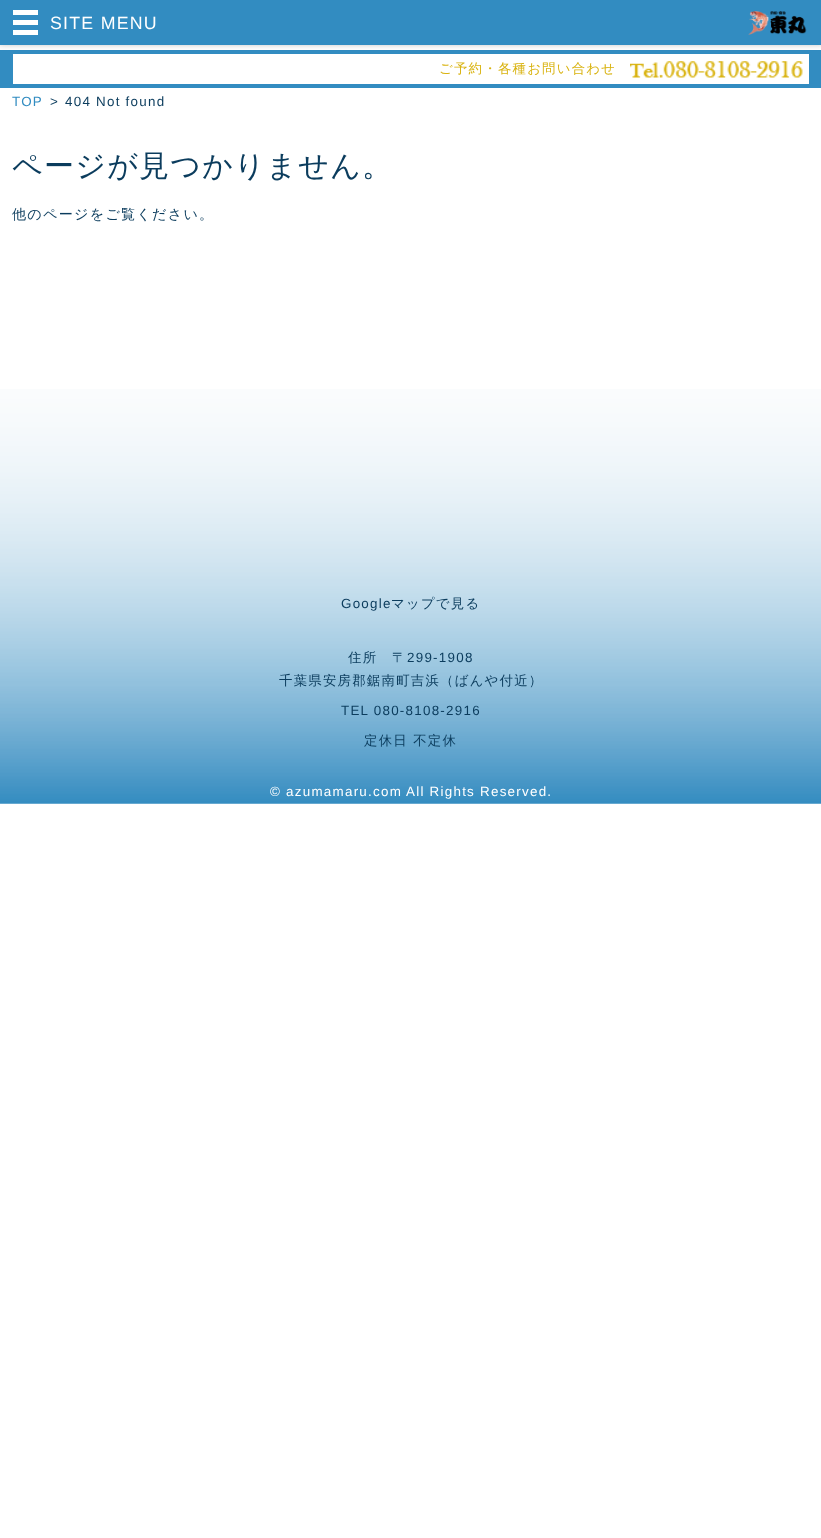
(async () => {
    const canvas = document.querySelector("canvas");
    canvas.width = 821;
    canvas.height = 1538;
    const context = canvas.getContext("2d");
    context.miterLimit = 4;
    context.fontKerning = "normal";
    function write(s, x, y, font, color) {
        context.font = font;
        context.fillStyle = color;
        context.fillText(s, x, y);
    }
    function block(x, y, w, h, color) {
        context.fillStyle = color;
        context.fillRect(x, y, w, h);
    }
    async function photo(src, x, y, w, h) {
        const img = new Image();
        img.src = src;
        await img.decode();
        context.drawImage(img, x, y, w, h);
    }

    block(0, 0, 821, 1538, "rgb(255, 255, 255)");
    block(0, 50, 821, 38, "rgb(50, 140, 193)");
    context.fillStyle = "rgba(0, 0, 0, 0.3)";
    context.filter = "blur(3px)";
    context.beginPath();
    context.rect(-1, -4, 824, 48);
    context.fill();
    context.filter = "none";
    block(0, 0, 821, 45, "rgb(50, 140, 193)");
    block(13, 10, 25, 25, "rgb(255, 255, 255)");
    await photo("media/1.png", 748, 11, 59, 24);
    block(13, 15, 25, 5, "rgb(50, 140, 193)");
    context.letterSpacing = "1.25px";
    write("SITE MENU", 50, 29, "17.75px Liberation Sans", "rgb(255, 255, 255)");
    block(13, 25, 25, 5, "rgb(50, 140, 193)");
    block(13, 54, 796, 30, "rgb(255, 255, 255)");
    write("ご予約・各種お問い合わせ", 439, 73, "500 13.4px WenQuanYi Zen Hei", "rgb(217, 179, 16)");
    await photo("media/2.png", 630, 61, 173, 17);
    write("TOP", 12, 106, "13.4px Liberation Sans", "rgb(50, 140, 193)");
    write(">", 50, 106, "13.4px Liberation Sans", "rgb(11, 60, 93)");
    write("404 Not found", 65, 106, "13.4px Liberation Sans", "rgb(11, 60, 93)");
    write("ページが見つかりません。", 12, 176, "500 30px WenQuanYi Zen Hei", "rgb(11, 60, 93)");
    write("他のページをご覧ください。", 12, 219, "500 14.1px WenQuanYi Zen Hei", "rgb(11, 60, 93)");
    await photo("media/3.png", 0, 389, 821, 415);
    write("Google", 341, 608, "13.4px Liberation Sans", "rgb(11, 60, 93)");
    write("マップで見る", 391, 608, "500 13.4px WenQuanYi Zen Hei", "rgb(11, 60, 93)");
    write("住所", 348, 662, "500 13.4px WenQuanYi Zen Hei", "rgb(11, 60, 93)");
    write("〒", 392, 662, "500 13.4px WenQuanYi Zen Hei", "rgb(11, 60, 93)");
    write("299-1908", 407, 662, "13.4px Liberation Sans", "rgb(11, 60, 93)");
    write("千葉県安房郡鋸南町吉浜（ばんや付近）", 279, 685, "500 13.4px WenQuanYi Zen Hei", "rgb(11, 60, 93)");
    write("TEL 080-8108-2916", 341, 715, "13.4px Liberation Sans", "rgb(11, 60, 93)");
    write("定休日 不定休", 364, 745, "500 13.4px WenQuanYi Zen Hei", "rgb(11, 60, 93)");
    write("© azumamaru.com", 270, 796, "13.4px Liberation Sans", "rgb(255, 255, 255)");
    write("All Rights Reserved.", 406, 796, "13.4px Liberation Sans", "rgb(255, 255, 255)");
})();
